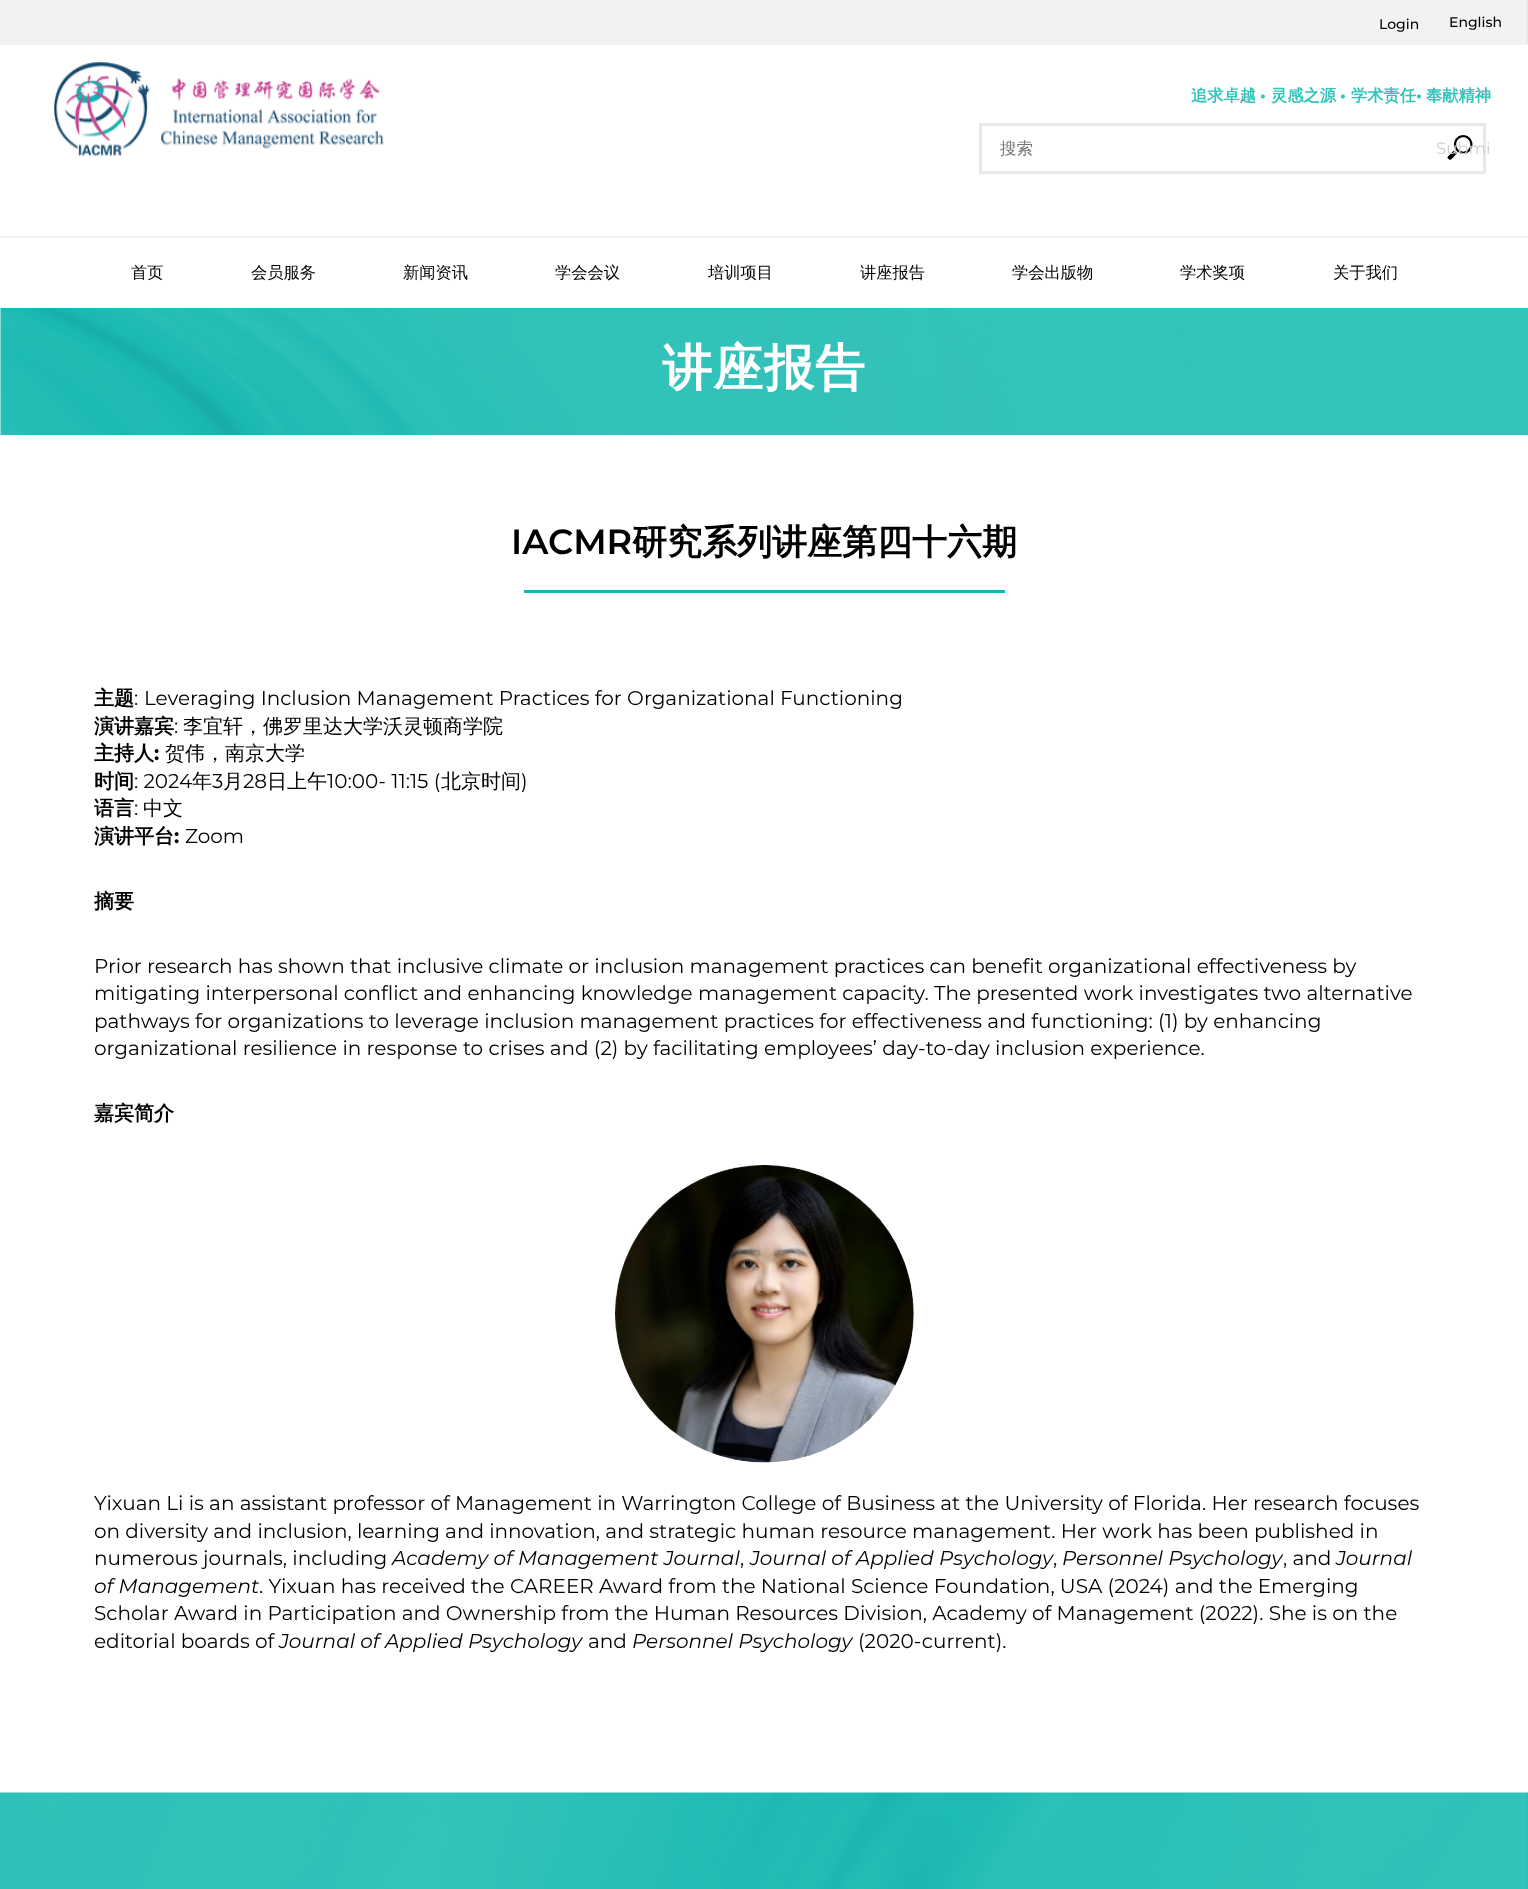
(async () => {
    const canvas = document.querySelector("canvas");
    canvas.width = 1528;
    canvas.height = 1889;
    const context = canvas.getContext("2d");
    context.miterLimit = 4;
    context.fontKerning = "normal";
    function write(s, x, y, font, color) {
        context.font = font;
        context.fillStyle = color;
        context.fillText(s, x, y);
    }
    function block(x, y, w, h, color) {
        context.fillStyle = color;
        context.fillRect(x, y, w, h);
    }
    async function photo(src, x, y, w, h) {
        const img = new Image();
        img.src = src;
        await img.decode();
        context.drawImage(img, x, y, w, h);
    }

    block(0, 0, 1528, 1889, "rgb(255, 255, 255)");
    block(0, 0, 1528, 238, "rgb(242, 242, 242)");
    block(1526, 0, 2, 45, "rgb(232, 232, 232)");
    write("Login", 1379, 29, "500 14px Montserrat", "rgb(0, 0, 0)");
    write("English", 1449, 27, "500 14px Montserrat", "rgb(0, 0, 0)");
    block(0, 45, 1528, 191, "rgb(255, 255, 255)");
    await photo("media/1.png", 53, 61, 331, 96);
    write("追求卓越", 1191, 101, "bold 16.25px WenQuanYi Zen Hei", "rgb(50, 195, 186)");
    write("•", 1260, 101, "bold 16.25px Montserrat", "rgb(50, 195, 186)");
    write("灵感之源", 1271, 101, "bold 16.25px WenQuanYi Zen Hei", "rgb(50, 195, 186)");
    write("•", 1340, 101, "bold 16.25px Montserrat", "rgb(50, 195, 186)");
    write("学术责任", 1351, 101, "bold 16.25px WenQuanYi Zen Hei", "rgb(50, 195, 186)");
    write("•", 1416, 101, "bold 16.25px Montserrat", "rgb(50, 195, 186)");
    write("奉献精神", 1426, 101, "bold 16.25px WenQuanYi Zen Hei", "rgb(50, 195, 186)");
    context.strokeStyle = "rgb(232, 232, 232)";
    context.lineWidth = 3;
    context.strokeRect(980.5, 124.5, 504, 48);
    write("搜索", 1000, 154, "500 16.5px WenQuanYi Zen Hei", "rgb(117, 117, 117)");
    await photo("media/2.png", 1447, 135, 26, 25);
    write("Submi", 1436, 154, "16.5px Montserrat", "rgb(206, 206, 206)");
    write("首页", 131, 278, "500 16.25px WenQuanYi Zen Hei", "rgb(0, 0, 0)");
    write("会员服务", 251, 278, "500 16.25px WenQuanYi Zen Hei", "rgb(0, 0, 0)");
    write("新闻资讯", 403, 278, "500 16.25px WenQuanYi Zen Hei", "rgb(0, 0, 0)");
    write("学会会议", 555, 278, "500 16.25px WenQuanYi Zen Hei", "rgb(0, 0, 0)");
    write("培训项目", 708, 278, "500 16.25px WenQuanYi Zen Hei", "rgb(0, 0, 0)");
    write("讲座报告", 860, 278, "500 16.25px WenQuanYi Zen Hei", "rgb(0, 0, 0)");
    write("学会出版物", 1012, 278, "500 16.25px WenQuanYi Zen Hei", "rgb(0, 0, 0)");
    write("学术奖项", 1180, 278, "500 16.25px WenQuanYi Zen Hei", "rgb(0, 0, 0)");
    write("关于我们", 1333, 278, "500 16.25px WenQuanYi Zen Hei", "rgb(0, 0, 0)");
    await photo("media/3.png", 0, 308, 1528, 127);
    context.letterSpacing = "1px";
    write("讲座报告", 662, 385, "bold 50px WenQuanYi Zen Hei", "rgb(255, 255, 255)");
    context.letterSpacing = "0px";
    write("IACMR", 511, 554, "600 35px Montserrat", "rgb(0, 0, 0)");
    write("研究系列讲座第四十六期", 632, 554, "bold 35px WenQuanYi Zen Hei", "rgb(0, 0, 0)");
    block(524, 590, 481, 3, "rgb(27, 178, 177)");
    write("主题", 94, 705, "bold 20px WenQuanYi Zen Hei", "rgb(0, 0, 0)");
    write(":", 134, 705, "20px Montserrat", "rgb(0, 0, 0)");
    write("Leveraging Inclusion Management Practices for Organizational Functioning", 144, 705, "20px Montserrat", "rgb(0, 0, 0)");
    write("演讲嘉宾", 94, 733, "bold 20px WenQuanYi Zen Hei", "rgb(0, 0, 0)");
    write(":", 174, 733, "20px Montserrat", "rgb(0, 0, 0)");
    write("李宜轩，佛罗里达大学沃灵顿商学院", 183, 733, "500 20px WenQuanYi Zen Hei", "rgb(0, 0, 0)");
    write("主持人", 94, 760, "bold 20px WenQuanYi Zen Hei", "rgb(0, 0, 0)");
    write(":", 154, 760, "bold 20px Montserrat", "rgb(0, 0, 0)");
    write("贺伟，南京大学", 165, 760, "500 20px WenQuanYi Zen Hei", "rgb(0, 0, 0)");
    write("时间", 94, 788, "bold 20px WenQuanYi Zen Hei", "rgb(0, 0, 0)");
    write(": 2024", 134, 788, "20px Montserrat", "rgb(0, 0, 0)");
    write("年", 192, 788, "500 20px WenQuanYi Zen Hei", "rgb(0, 0, 0)");
    write("3", 212, 788, "20px Montserrat", "rgb(0, 0, 0)");
    write("月", 223, 788, "500 20px WenQuanYi Zen Hei", "rgb(0, 0, 0)");
    write("28", 243, 788, "20px Montserrat", "rgb(0, 0, 0)");
    write("日上午", 267, 788, "500 20px WenQuanYi Zen Hei", "rgb(0, 0, 0)");
    write("10:00- 11:15 (", 327, 788, "20px Montserrat", "rgb(0, 0, 0)");
    write("北京时间", 441, 788, "500 20px WenQuanYi Zen Hei", "rgb(0, 0, 0)");
    write(")", 521, 788, "20px Montserrat", "rgb(0, 0, 0)");
    write("语言", 94, 815, "bold 20px WenQuanYi Zen Hei", "rgb(0, 0, 0)");
    write(":", 134, 815, "20px Montserrat", "rgb(0, 0, 0)");
    write("中文", 143, 815, "500 20px WenQuanYi Zen Hei", "rgb(0, 0, 0)");
    write("演讲平台", 94, 843, "bold 20px WenQuanYi Zen Hei", "rgb(0, 0, 0)");
    write(":", 174, 843, "bold 20px Montserrat", "rgb(0, 0, 0)");
    write("Zoom", 185, 843, "20px Montserrat", "rgb(0, 0, 0)");
    write("摘要", 94, 908, "bold 20px WenQuanYi Zen Hei", "rgb(0, 0, 0)");
    write("Prior research has shown that inclusive climate or inclusion management practices can benefit organizational effectiveness by", 94, 973, "20px Montserrat", "rgb(0, 0, 0)");
    write("mitigating interpersonal conflict and enhancing knowledge management capacity. The presented work investigates two alternative", 94, 1000, "20px Montserrat", "rgb(0, 0, 0)");
    write("pathways for organizations to leverage inclusion management practices for effectiveness and functioning: (1) by enhancing", 94, 1028, "20px Montserrat", "rgb(0, 0, 0)");
    write("organizational resilience in response to crises and (2) by facilitating employees’ day-to-day inclusion experience.", 94, 1055, "20px Montserrat", "rgb(0, 0, 0)");
    write("嘉宾简介", 94, 1120, "bold 20px WenQuanYi Zen Hei", "rgb(0, 0, 0)");
    await photo("media/4.png", 615, 1165, 299, 298);
    write("Yixuan Li is an assistant professor of Management in Warrington College of Business at the University of Florida. Her research focuses", 94, 1510, "20px Montserrat", "rgb(0, 0, 0)");
    write("on diversity and inclusion, learning and innovation, and strategic human resource management. Her work has been published in", 94, 1538, "20px Montserrat", "rgb(0, 0, 0)");
    write("numerous journals, including", 94, 1565, "20px Montserrat", "rgb(0, 0, 0)");
    write("Academy of Management Journal", 392, 1565, "italic 20px Montserrat", "rgb(0, 0, 0)");
    write(",", 740, 1565, "20px Montserrat", "rgb(0, 0, 0)");
    write("Journal of Applied Psychology", 750, 1565, "italic 20px Montserrat", "rgb(0, 0, 0)");
    write(",", 1053, 1565, "20px Montserrat", "rgb(0, 0, 0)");
    write("Personnel Psychology", 1062, 1565, "italic 20px Montserrat", "rgb(0, 0, 0)");
    write(", and", 1283, 1565, "20px Montserrat", "rgb(0, 0, 0)");
    write("Journal", 1336, 1565, "italic 20px Montserrat", "rgb(0, 0, 0)");
    write("of Management", 94, 1593, "italic 20px Montserrat", "rgb(0, 0, 0)");
    write(". Yixuan has received the CAREER Award from the National Science Foundation, USA (2024) and the Emerging", 259, 1593, "20px Montserrat", "rgb(0, 0, 0)");
    write("Scholar Award in Participation and Ownership from the Human Resources Division, Academy of Management (2022). She is on the", 94, 1620, "20px Montserrat", "rgb(0, 0, 0)");
    write("editorial boards of", 94, 1648, "20px Montserrat", "rgb(0, 0, 0)");
    write("Journal of Applied Psychology", 279, 1648, "italic 20px Montserrat", "rgb(0, 0, 0)");
    write("and", 588, 1648, "20px Montserrat", "rgb(0, 0, 0)");
    write("Personnel Psychology", 632, 1648, "italic 20px Montserrat", "rgb(0, 0, 0)");
    write("(2020-current).", 858, 1648, "20px Montserrat", "rgb(0, 0, 0)");
    await photo("media/5.png", 0, 1792, 1528, 97);
})();
